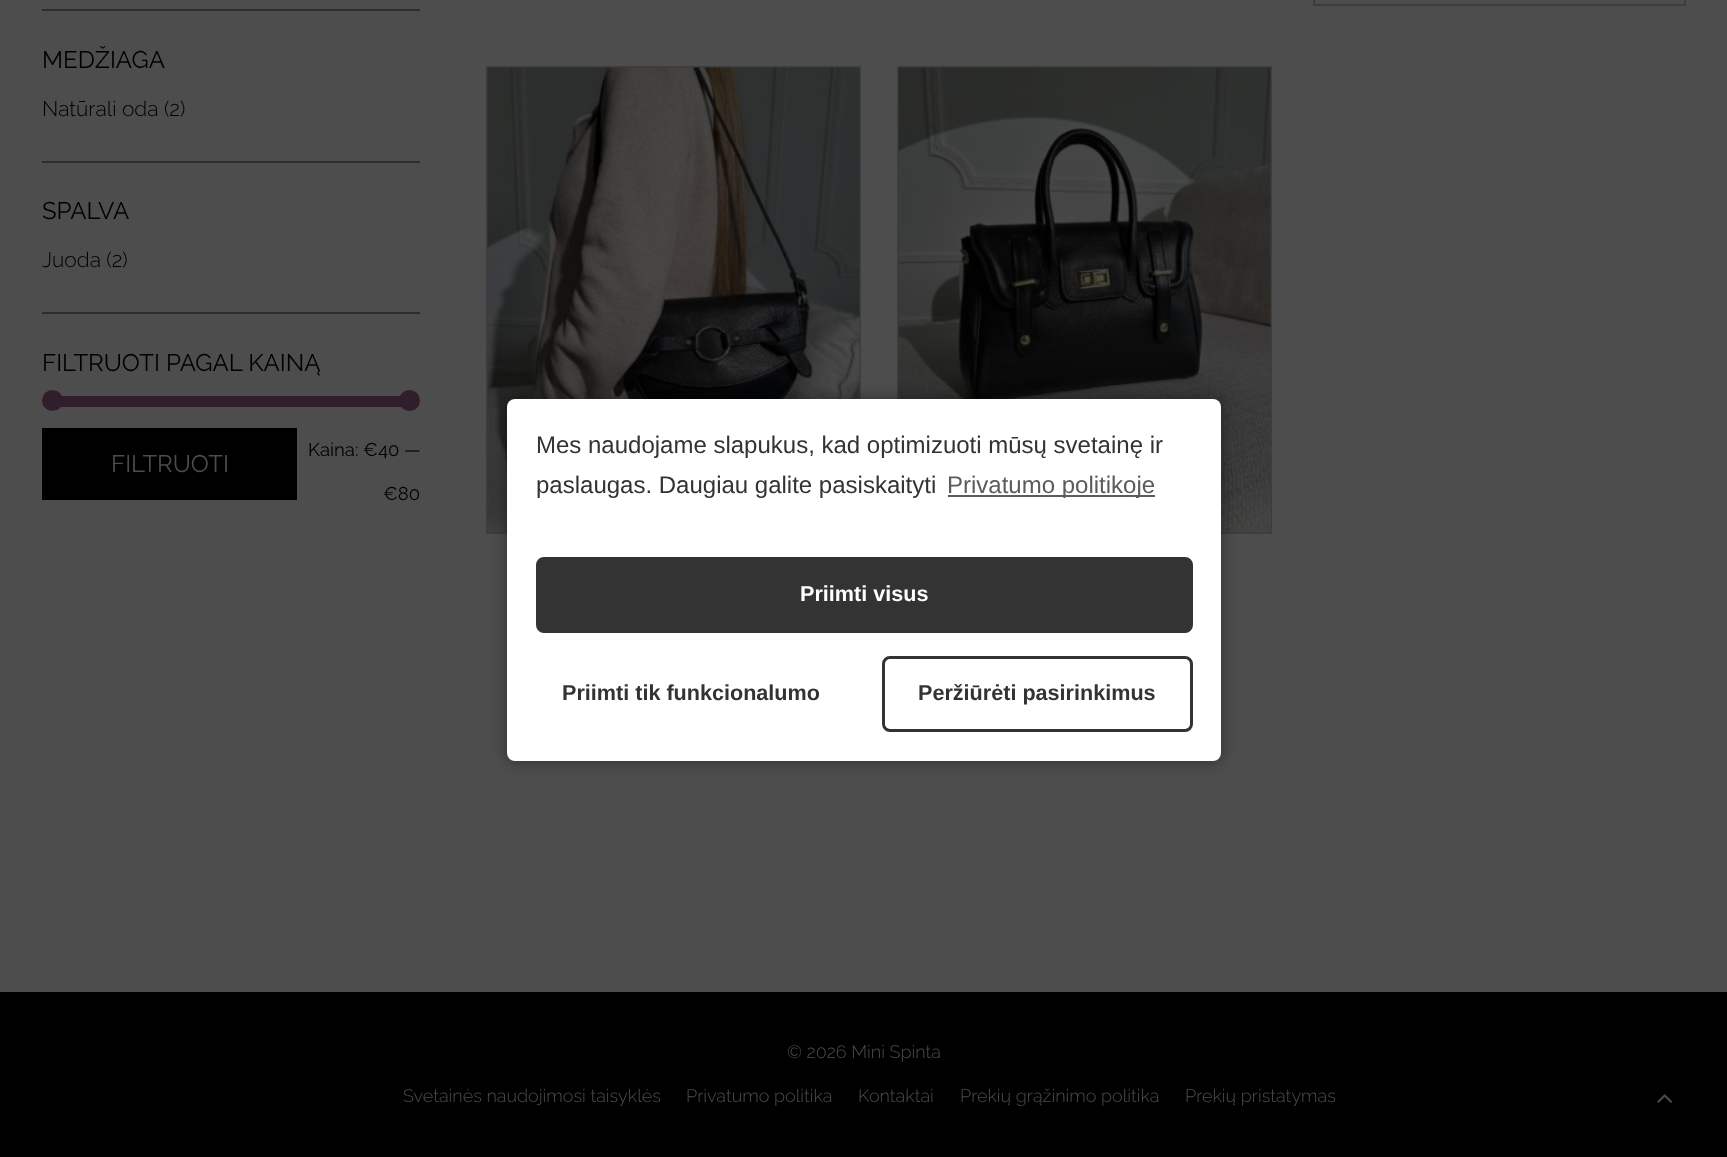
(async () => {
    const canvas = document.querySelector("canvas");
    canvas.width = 1727;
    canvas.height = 1157;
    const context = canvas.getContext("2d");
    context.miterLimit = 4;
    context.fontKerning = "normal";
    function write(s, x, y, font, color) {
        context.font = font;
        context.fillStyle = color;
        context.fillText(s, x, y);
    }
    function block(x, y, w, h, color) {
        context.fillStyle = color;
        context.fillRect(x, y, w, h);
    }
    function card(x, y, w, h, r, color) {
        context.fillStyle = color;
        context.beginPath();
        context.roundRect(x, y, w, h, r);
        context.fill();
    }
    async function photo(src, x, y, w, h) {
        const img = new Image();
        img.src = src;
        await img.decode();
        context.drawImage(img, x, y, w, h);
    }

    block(0, 0, 1727, 1157, "rgb(77, 77, 77)");
    block(42, 9, 378, 2, "rgb(44, 45, 46)");
    block(42, 161, 378, 2, "rgb(44, 45, 46)");
    write("MEDŽIAGA", 42, 68, "24px Raleway", "rgb(0, 0, 0)");
    write("Natūrali oda (2)", 42, 116, "300 21px Raleway", "rgb(0, 0, 0)");
    block(42, 312, 378, 2, "rgb(44, 45, 46)");
    write("SPALVA", 42, 219, "24px Raleway", "rgb(0, 0, 0)");
    write("Juoda (2)", 42, 267, "300 21px Raleway", "rgb(0, 0, 0)");
    write("FILTRUOTI PAGAL KAINĄ", 42, 371, "24px Raleway", "rgb(0, 0, 0)");
    block(60, 396, 342, 11, "rgb(49, 30, 45)");
    context.beginPath();
    context.arc(52.5, 400.5, 10.5, 0, Math.PI * 2);
    context.fill();
    context.beginPath();
    context.arc(409.5, 400.5, 10.5, 0, Math.PI * 2);
    context.fill();
    block(42, 428, 255, 72, "rgb(0, 0, 0)");
    write("FILTRUOTI", 111, 472, "24px Raleway", "rgb(77, 77, 77)");
    write("Kaina: €40 —", 308, 456, "18.5px Raleway", "rgb(0, 0, 0)");
    write("€80", 383, 500, "18.5px Raleway", "rgb(0, 0, 0)");
    context.strokeStyle = "rgb(61, 61, 61)";
    context.lineWidth = 2;
    context.strokeRect(1314, -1, 371, 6);
    context.strokeRect(487, 67, 373, 466);
    await photo("media/1.png", 487, 67, 373, 466);
    context.strokeRect(898, 67, 373, 466);
    await photo("media/2.png", 898, 67, 373, 466);
    context.fillStyle = "rgba(0, 0, 0, 0.4)";
    context.filter = "blur(7.5px)";
    context.beginPath();
    context.roundRect(507, 399, 714, 362, 8);
    context.fill();
    context.filter = "none";
    card(507, 399, 714, 362, 8, "rgb(255, 255, 255)");
    write("Mes naudojame slapukus, kad optimizuoti mūsų svetainę ir", 536, 453, "24px Liberation Sans", "rgb(51, 51, 51)");
    write("paslaugas. Daugiau galite pasiskaityti", 536, 493, "24px Liberation Sans", "rgb(51, 51, 51)");
    block(948, 495, 207, 2, "rgb(92, 92, 92)");
    write("Privatumo politikoje", 947, 493, "24px Liberation Sans", "rgb(92, 92, 92)");
    context.fillStyle = "rgb(51, 51, 51)";
    context.beginPath();
    context.roundRect(537.5, 558.5, 654, 73, 6.5);
    context.fill();
    context.strokeStyle = "rgb(51, 51, 51)";
    context.lineWidth = 3;
    context.stroke();
    write("Priimti visus", 800, 601, "bold 21.6px Liberation Sans", "rgb(255, 255, 255)");
    write("Priimti tik funkcionalumo", 562, 700, "bold 21.6px Liberation Sans", "rgb(51, 51, 51)");
    context.beginPath();
    context.roundRect(883.5, 657.5, 308, 73, 6.5);
    context.stroke();
    write("Peržiūrėti pasirinkimus", 918, 700, "bold 21.6px Liberation Sans", "rgb(51, 51, 51)");
    block(0, 992, 1727, 165, "rgb(0, 0, 0)");
    write("© 2026 Mini Spinta", 787, 1058, "300 18px Raleway", "rgb(77, 77, 77)");
    write("Svetainės naudojimosi taisyklės", 403, 1102, "300 18px Raleway", "rgb(77, 77, 77)");
    write("Privatumo politika", 686, 1102, "300 18px Raleway", "rgb(77, 77, 77)");
    write("Kontaktai", 858, 1102, "300 18px Raleway", "rgb(77, 77, 77)");
    write("Prekių grąžinimo politika", 960, 1102, "300 18px Raleway", "rgb(77, 77, 77)");
    write("Prekių pristatymas", 1185, 1102, "300 18px Raleway", "rgb(77, 77, 77)");
    await photo("media/3.png", 1657, 1094, 16, 9);
})();
